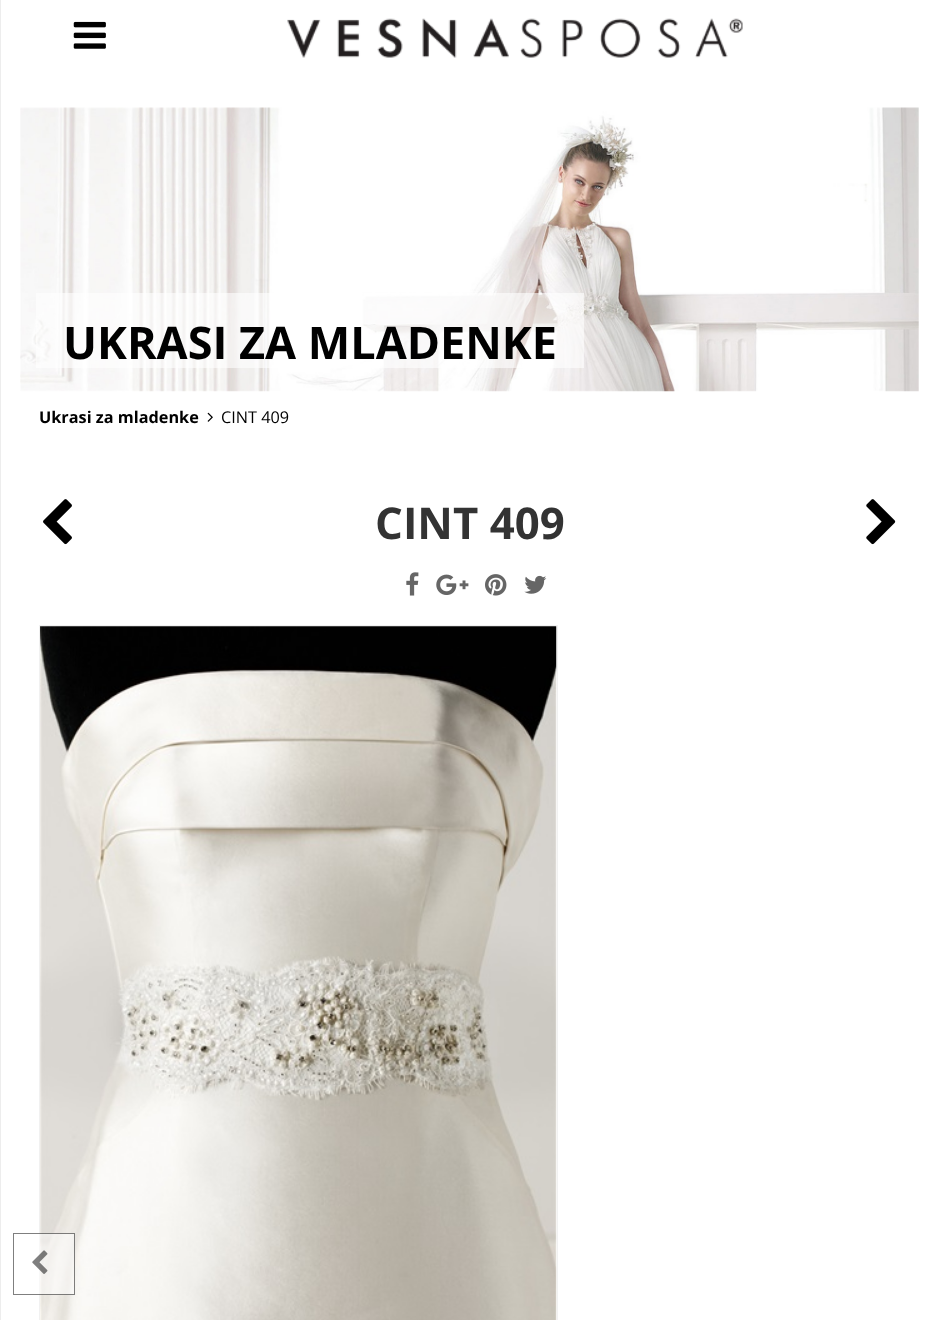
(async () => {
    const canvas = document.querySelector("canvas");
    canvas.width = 937;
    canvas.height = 1320;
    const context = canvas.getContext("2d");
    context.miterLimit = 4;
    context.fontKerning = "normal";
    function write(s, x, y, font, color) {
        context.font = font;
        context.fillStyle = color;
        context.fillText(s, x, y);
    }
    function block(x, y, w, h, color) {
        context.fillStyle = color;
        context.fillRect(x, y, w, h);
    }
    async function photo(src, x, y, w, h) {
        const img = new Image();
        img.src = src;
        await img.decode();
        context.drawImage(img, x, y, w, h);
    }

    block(0, 0, 937, 1320, "rgb(255, 255, 255)");
    block(0, 0, 1, 1320, "rgb(237, 237, 237)");
    await photo("media/1.png", 73, 21, 33, 28);
    await photo("media/2.png", 287, 18, 456, 40);
    await photo("media/3.png", 20, 107, 899, 285);
    block(36, 293, 548, 75, "rgba(255, 255, 255, 0.6)");
    write("UKRASI ZA MLADENKE", 63, 359, "bold 45px Open Sans", "rgb(0, 0, 0)");
    write("Ukrasi za mladenke", 39, 423, "bold 16.25px Open Sans", "rgb(0, 0, 0)");
    await photo("media/4.png", 207, 412, 6, 10);
    write("CINT 409", 221, 423, "16.25px Open Sans", "rgb(0, 0, 0)");
    await photo("media/5.png", 43, 499, 29, 46);
    write("CINT 409", 375, 539, "bold 43.75px Open Sans", "rgb(51, 51, 51)");
    await photo("media/6.png", 866, 499, 30, 46);
    await photo("media/7.png", 406, 572, 13, 24);
    await photo("media/8.png", 436, 574, 33, 21);
    await photo("media/9.png", 485, 574, 22, 22);
    await photo("media/10.png", 524, 575, 23, 19);
    context.strokeStyle = "rgb(241, 241, 241)";
    context.strokeRect(39.5, 625.5, 518, 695);
    await photo("media/11.png", 40, 626, 517, 694);
    block(39, 1233, 36, 62, "rgba(255, 255, 255, 0.5)");
    context.strokeStyle = "rgba(0, 0, 0, 0.5)";
    context.strokeRect(13.5, 1233.5, 61, 61);
    await photo("media/12.png", 32, 1250, 16, 24);
})();
